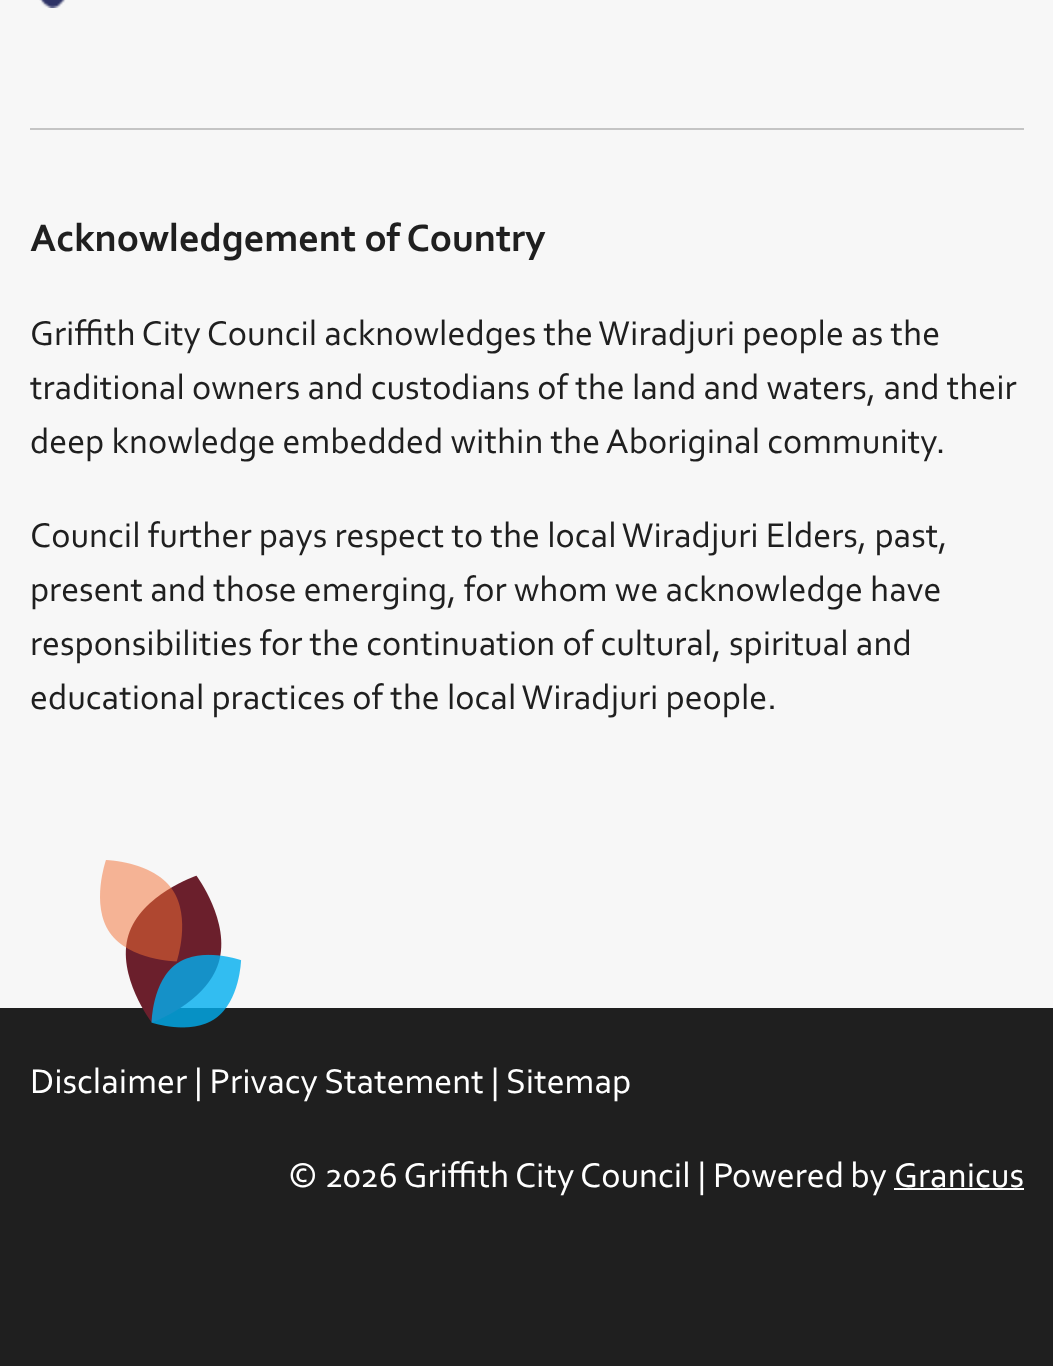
(async () => {
    const canvas = document.querySelector("canvas");
    canvas.width = 1053;
    canvas.height = 1366;
    const context = canvas.getContext("2d");
    context.miterLimit = 4;
    context.fontKerning = "normal";
    function write(s, x, y, font, color) {
        context.font = font;
        context.fillStyle = color;
        context.fillText(s, x, y);
    }
    function block(x, y, w, h, color) {
        context.fillStyle = color;
        context.fillRect(x, y, w, h);
    }
    async function photo(src, x, y, w, h) {
        const img = new Image();
        img.src = src;
        await img.decode();
        context.drawImage(img, x, y, w, h);
    }

    block(0, 0, 1053, 1366, "rgb(247, 247, 247)");
    await photo("media/1.png", 39, 0, 27, 8);
    block(30, 128, 994, 2, "rgb(196, 196, 196)");
    write("Acknowledgement of Country", 30, 251, "bold 40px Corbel", "rgb(31, 31, 31)");
    write("Griffith City Council acknowledges the Wiradjuri people as the", 30, 345, "36px Corbel", "rgb(31, 31, 31)");
    write("traditional owners and custodians of the land and waters, and their", 30, 399, "36px Corbel", "rgb(31, 31, 31)");
    write("deep knowledge embedded within the Aboriginal community.", 30, 453, "36px Corbel", "rgb(31, 31, 31)");
    write("Council further pays respect to the local Wiradjuri Elders, past,", 30, 547, "36px Corbel", "rgb(31, 31, 31)");
    write("present and those emerging, for whom we acknowledge have", 30, 601, "36px Corbel", "rgb(31, 31, 31)");
    write("responsibilities for the continuation of cultural, spiritual and", 30, 655, "36px Corbel", "rgb(31, 31, 31)");
    write("educational practices of the local Wiradjuri people.", 30, 709, "36px Corbel", "rgb(31, 31, 31)");
    block(0, 1008, 1053, 358, "rgb(31, 31, 31)");
    await photo("media/2.png", 100, 860, 142, 168);
    write("Disclaimer | Privacy Statement", 30, 1093, "36px Corbel", "rgb(255, 255, 255)");
    write("|", 491, 1093, "36px Corbel", "rgb(255, 255, 255)");
    write("Sitemap", 506, 1093, "36px Corbel", "rgb(255, 255, 255)");
    write("© 2026 Griffith City Council |", 288, 1187, "36px Corbel", "rgb(255, 255, 255)");
    context.wordSpacing = "-1px";
    write("Powered by", 713, 1187, "36px Corbel", "rgb(255, 255, 255)");
    context.wordSpacing = "0px";
    write("Granicus", 894, 1187, "36px Corbel", "rgb(255, 255, 255)");
    block(894, 1188, 130, 2, "rgb(255, 255, 255)");
})();
